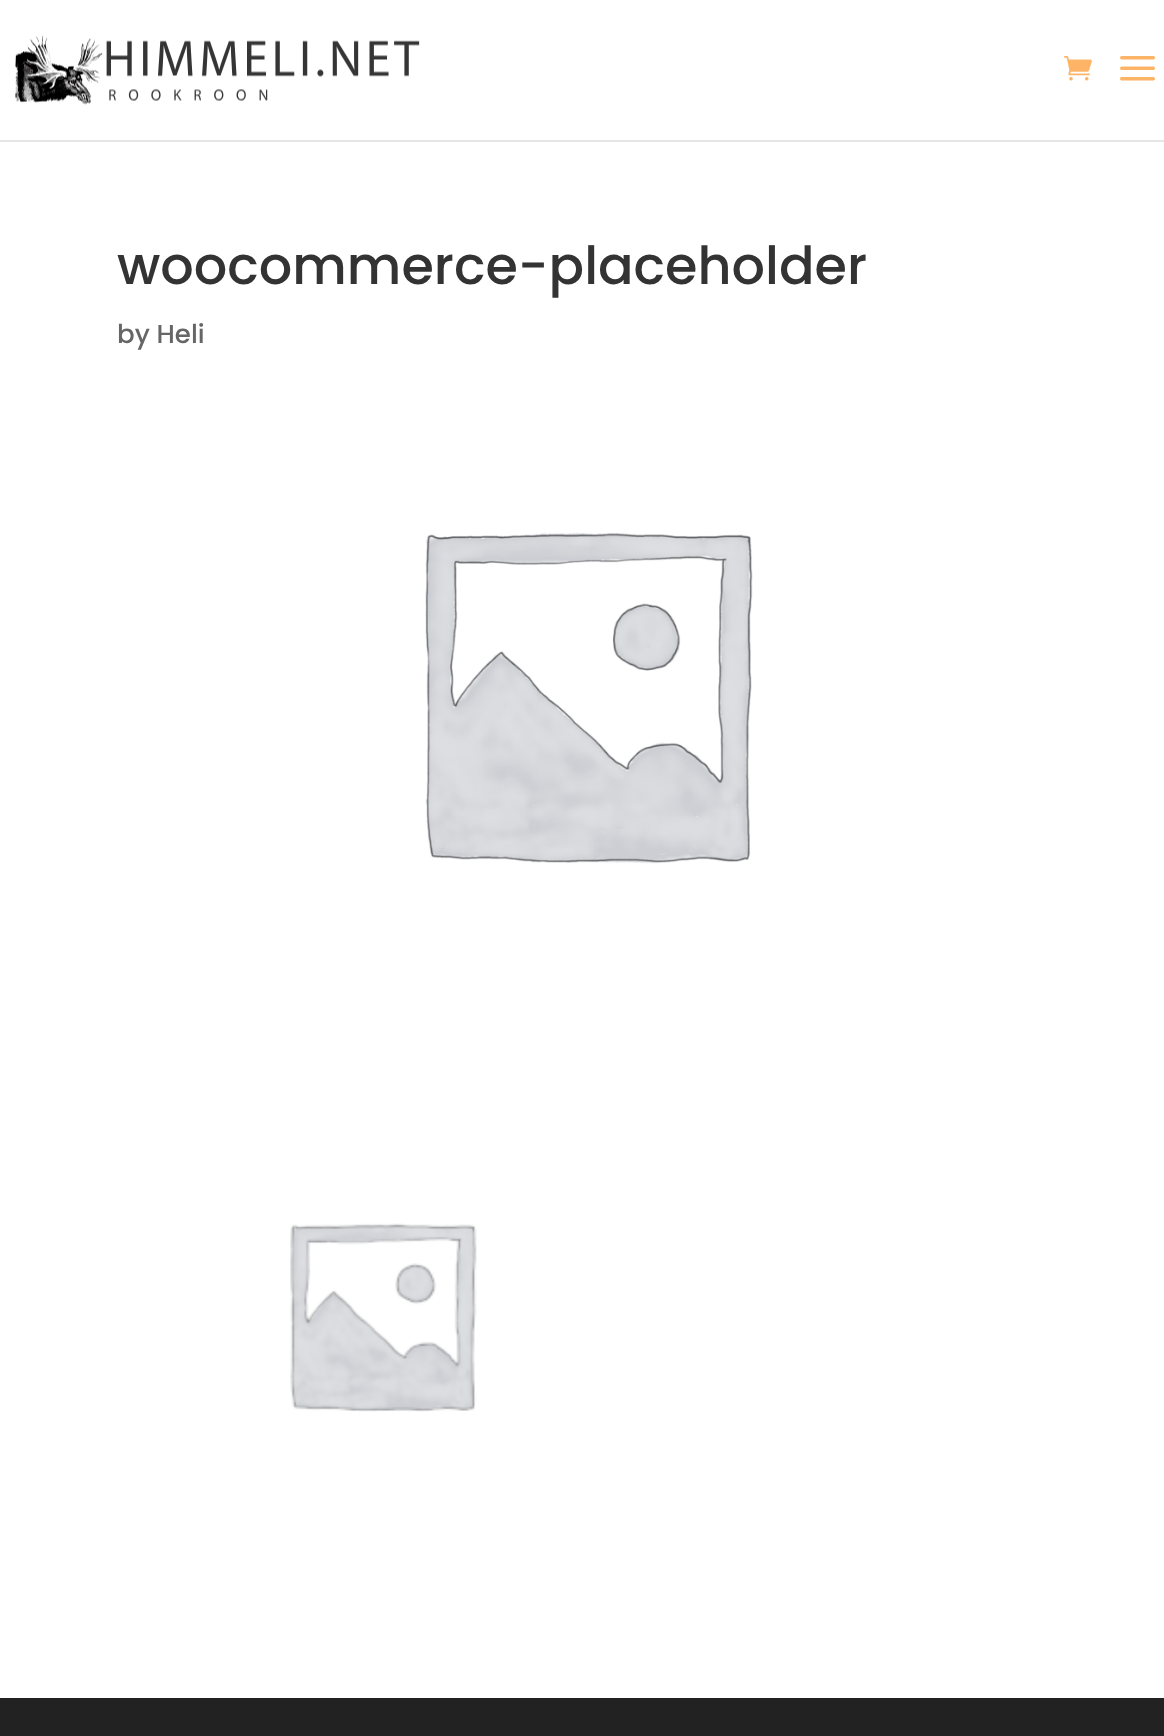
(async () => {
    const canvas = document.querySelector("canvas");
    canvas.width = 1164;
    canvas.height = 1736;
    const context = canvas.getContext("2d");
    context.miterLimit = 4;
    context.fontKerning = "normal";
    function write(s, x, y, font, color) {
        context.font = font;
        context.fillStyle = color;
        context.fillText(s, x, y);
    }
    function block(x, y, w, h, color) {
        context.fillStyle = color;
        context.fillRect(x, y, w, h);
    }
    async function photo(src, x, y, w, h) {
        const img = new Image();
        img.src = src;
        await img.decode();
        context.drawImage(img, x, y, w, h);
    }

    block(0, 0, 1164, 1736, "rgb(255, 255, 255)");
    context.fillStyle = "rgb(230, 230, 230)";
    context.beginPath();
    context.moveTo(0, 140);
    context.lineTo(0, 142);
    context.lineTo(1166, 142);
    context.lineTo(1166, 2);
    context.lineTo(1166, 140);
    context.closePath();
    context.fill();
    await photo("media/1.png", 15, 35, 405, 70);
    await photo("media/2.png", 1064, 56, 28, 25);
    await photo("media/3.png", 1120, 56, 35, 25);
    write("woocommerce-placeholder", 117, 284, "500 52.5px Poppins", "rgb(51, 51, 51)");
    write("by Heli", 117, 343, "500 26px Poppins", "rgb(102, 102, 102)");
    await photo("media/4.png", 425, 532, 328, 332);
    await photo("media/5.png", 290, 1223, 187, 189);
    block(0, 1698, 1164, 38, "rgb(34, 34, 34)");
})();
